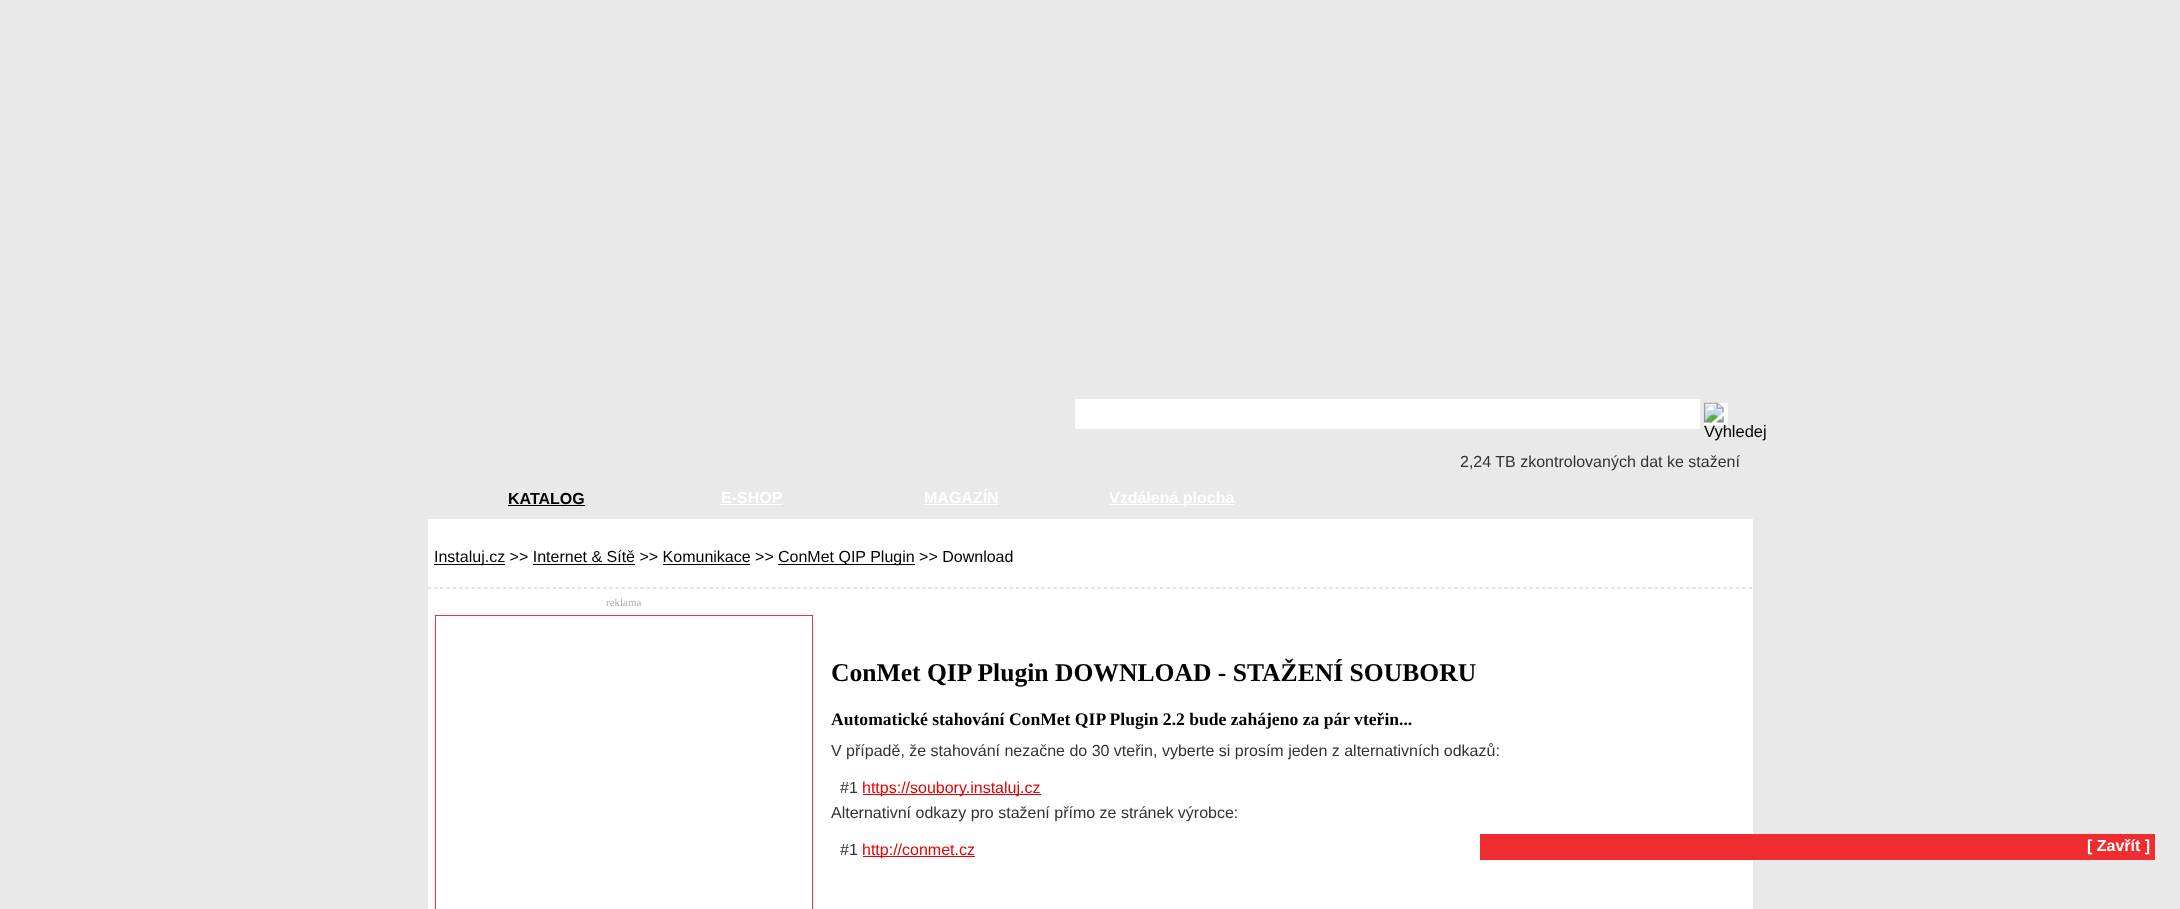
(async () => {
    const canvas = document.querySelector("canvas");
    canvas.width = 2180;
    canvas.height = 909;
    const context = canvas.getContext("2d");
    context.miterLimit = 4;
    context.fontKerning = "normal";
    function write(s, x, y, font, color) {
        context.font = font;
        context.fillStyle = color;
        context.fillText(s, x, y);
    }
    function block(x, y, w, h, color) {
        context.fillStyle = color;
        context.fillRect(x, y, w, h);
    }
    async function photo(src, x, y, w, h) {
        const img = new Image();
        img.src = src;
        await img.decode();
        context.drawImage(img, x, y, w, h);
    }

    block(0, 0, 2180, 909, "rgb(233, 233, 233)");
    block(1075, 399, 625, 30, "rgb(255, 255, 255)");
    block(1704, 403, 24, 23, "rgb(255, 255, 255)");
    await photo("media/1.png", 1703, 402, 23, 25);
    write("Vyhledej", 1704, 437, "16.5px Liberation Sans", "rgb(0, 0, 0)");
    write("2,24 TB zkontrolovaných dat ke stažení", 1460, 467, "16px Liberation Sans", "rgb(51, 51, 51)");
    write("KATALOG", 508, 504, "bold 16px Liberation Sans", "rgb(0, 0, 0)");
    block(508, 505, 77, 1, "rgb(0, 0, 0)");
    write("E-SHOP", 721, 503, "bold 16px Liberation Sans", "rgb(255, 255, 255)");
    block(720, 504, 63, 1, "rgb(255, 255, 255)");
    write("MAGAZÍN", 924, 503, "bold 16px Liberation Sans", "rgb(255, 255, 255)");
    block(924, 504, 75, 1, "rgb(255, 255, 255)");
    block(1109, 504, 125, 1, "rgb(255, 255, 255)");
    write("Vzdálená plocha", 1109, 503, "bold 16px Liberation Sans", "rgb(255, 255, 255)");
    block(428, 519, 1325, 390, "rgb(255, 255, 255)");
    block(434, 564, 71, 1, "rgb(0, 0, 0)");
    write("Instaluj.cz >> Internet & Sítě >> Komunikace >>", 434, 562, "16px Liberation Sans", "rgb(0, 0, 0)");
    block(778, 564, 137, 1, "rgb(0, 0, 0)");
    write("ConMet QIP Plugin >> Download", 778, 562, "16px Liberation Sans", "rgb(0, 0, 0)");
    block(533, 564, 102, 1, "rgb(0, 0, 0)");
    block(663, 564, 87, 1, "rgb(0, 0, 0)");
    context.beginPath();
    context.moveTo(427.5, 588);
    context.lineTo(1752.5, 588);
    context.strokeStyle = "rgb(205, 205, 205)";
    context.lineWidth = 1.2;
    context.setLineDash([3.75, 2.51]);
    context.stroke();
    write("reklama", 606, 606, "11px Liberation Serif", "rgb(174, 174, 174)");
    context.strokeStyle = "rgb(242, 52, 52)";
    context.lineWidth = 1;
    context.setLineDash([]);
    context.strokeRect(435.5, 615.5, 377, 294);
    write("ConMet QIP Plugin DOWNLOAD - STAŽENÍ SOUBORU", 831, 681, "bold 25.6px Liberation Serif", "rgb(0, 0, 0)");
    write("Automatické stahování ConMet QIP Plugin 2.2 bude zahájeno za pár vteřin...", 831, 725, "bold 17.6px Liberation Serif", "rgb(0, 0, 0)");
    write("V případě, že stahování nezačne do 30 vteřin, vyberte si prosím jeden z alternativních odkazů:", 831, 756, "16px Liberation Sans", "rgb(51, 51, 51)");
    write("#1", 840, 793, "16px Liberation Sans", "rgb(51, 51, 51)");
    block(863, 794, 178, 1, "rgb(234, 0, 0)");
    write("https://soubory.instaluj.cz", 862, 793, "16px Liberation Sans", "rgb(234, 0, 0)");
    write("Alternativní odkazy pro stažení přímo ze stránek výrobce:", 831, 818, "16px Liberation Sans", "rgb(51, 51, 51)");
    write("#1", 840, 855, "16px Liberation Sans", "rgb(51, 51, 51)");
    block(863, 856, 112, 1, "rgb(234, 0, 0)");
    write("http://conmet.cz", 862, 855, "16px Liberation Sans", "rgb(234, 0, 0)");
    block(1480, 834, 675, 26, "rgb(239, 44, 48)");
    write("[ Zavřít ]", 2087, 851, "bold 16px Liberation Sans", "rgb(255, 255, 255)");
})();
